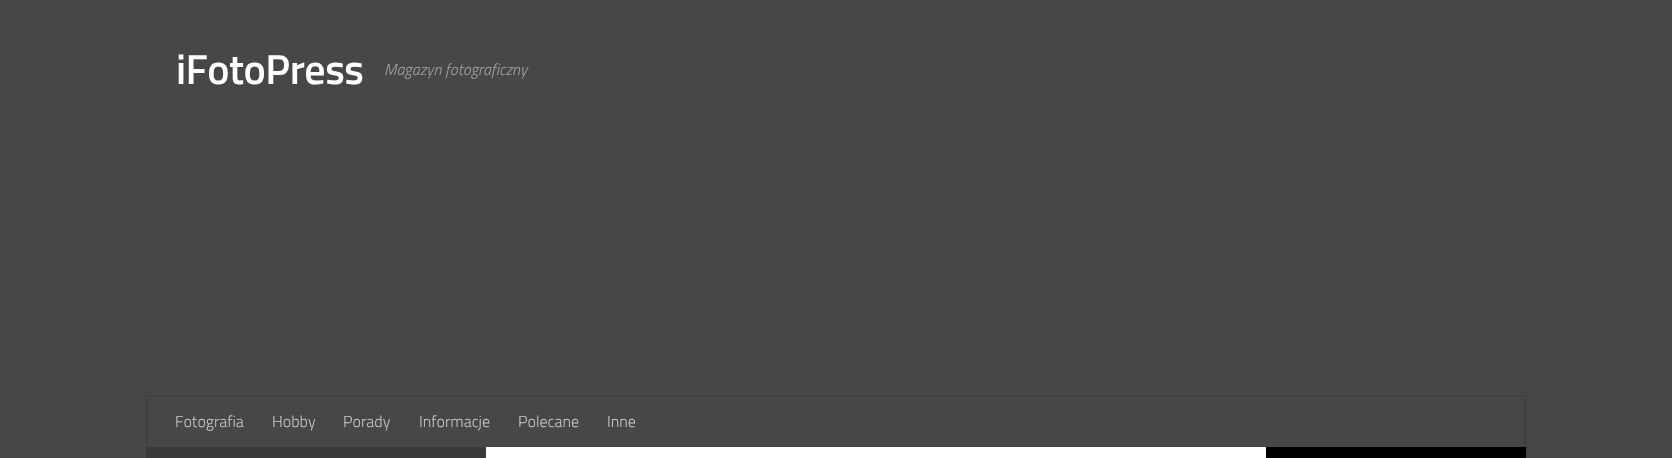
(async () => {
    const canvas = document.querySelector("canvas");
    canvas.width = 1672;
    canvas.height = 458;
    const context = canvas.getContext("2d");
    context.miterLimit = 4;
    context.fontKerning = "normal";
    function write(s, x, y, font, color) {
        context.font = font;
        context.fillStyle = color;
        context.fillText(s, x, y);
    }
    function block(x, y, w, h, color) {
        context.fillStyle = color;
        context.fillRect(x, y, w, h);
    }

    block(0, 0, 1672, 458, "rgb(71, 71, 71)");
    block(146, 397, 1380, 1, "rgb(80, 80, 80)");
    context.letterSpacing = "-0.5px";
    write("iFotoPress", 176, 84, "600 42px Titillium", "rgb(255, 255, 255)");
    context.letterSpacing = "0px";
    write("Magazyn fotograficzny", 384, 75, "italic 300 16px Titillium", "rgb(163, 163, 163)");
    block(146, 396, 1380, 1, "rgb(57, 57, 57)");
    block(1525, 397, 1, 50, "rgb(57, 57, 57)");
    block(1525, 397, 1, 1, "rgb(67, 67, 67)");
    block(146, 397, 1, 50, "rgb(57, 57, 57)");
    block(146, 397, 1, 1, "rgb(67, 67, 67)");
    write("Fotografia", 175, 427, "300 16px Titillium", "rgb(200, 200, 200)");
    write("Hobby", 272, 427, "300 16px Titillium", "rgb(200, 200, 200)");
    write("Porady", 343, 427, "300 16px Titillium", "rgb(200, 200, 200)");
    write("Informacje", 419, 427, "300 16px Titillium", "rgb(200, 200, 200)");
    write("Polecane", 518, 427, "300 16px Titillium", "rgb(200, 200, 200)");
    write("Inne", 607, 427, "300 16px Titillium", "rgb(200, 200, 200)");
    block(486, 447, 780, 11, "rgb(255, 255, 255)");
    block(146, 447, 340, 11, "rgb(58, 58, 58)");
    block(1266, 447, 260, 11, "rgb(0, 0, 0)");
})();
